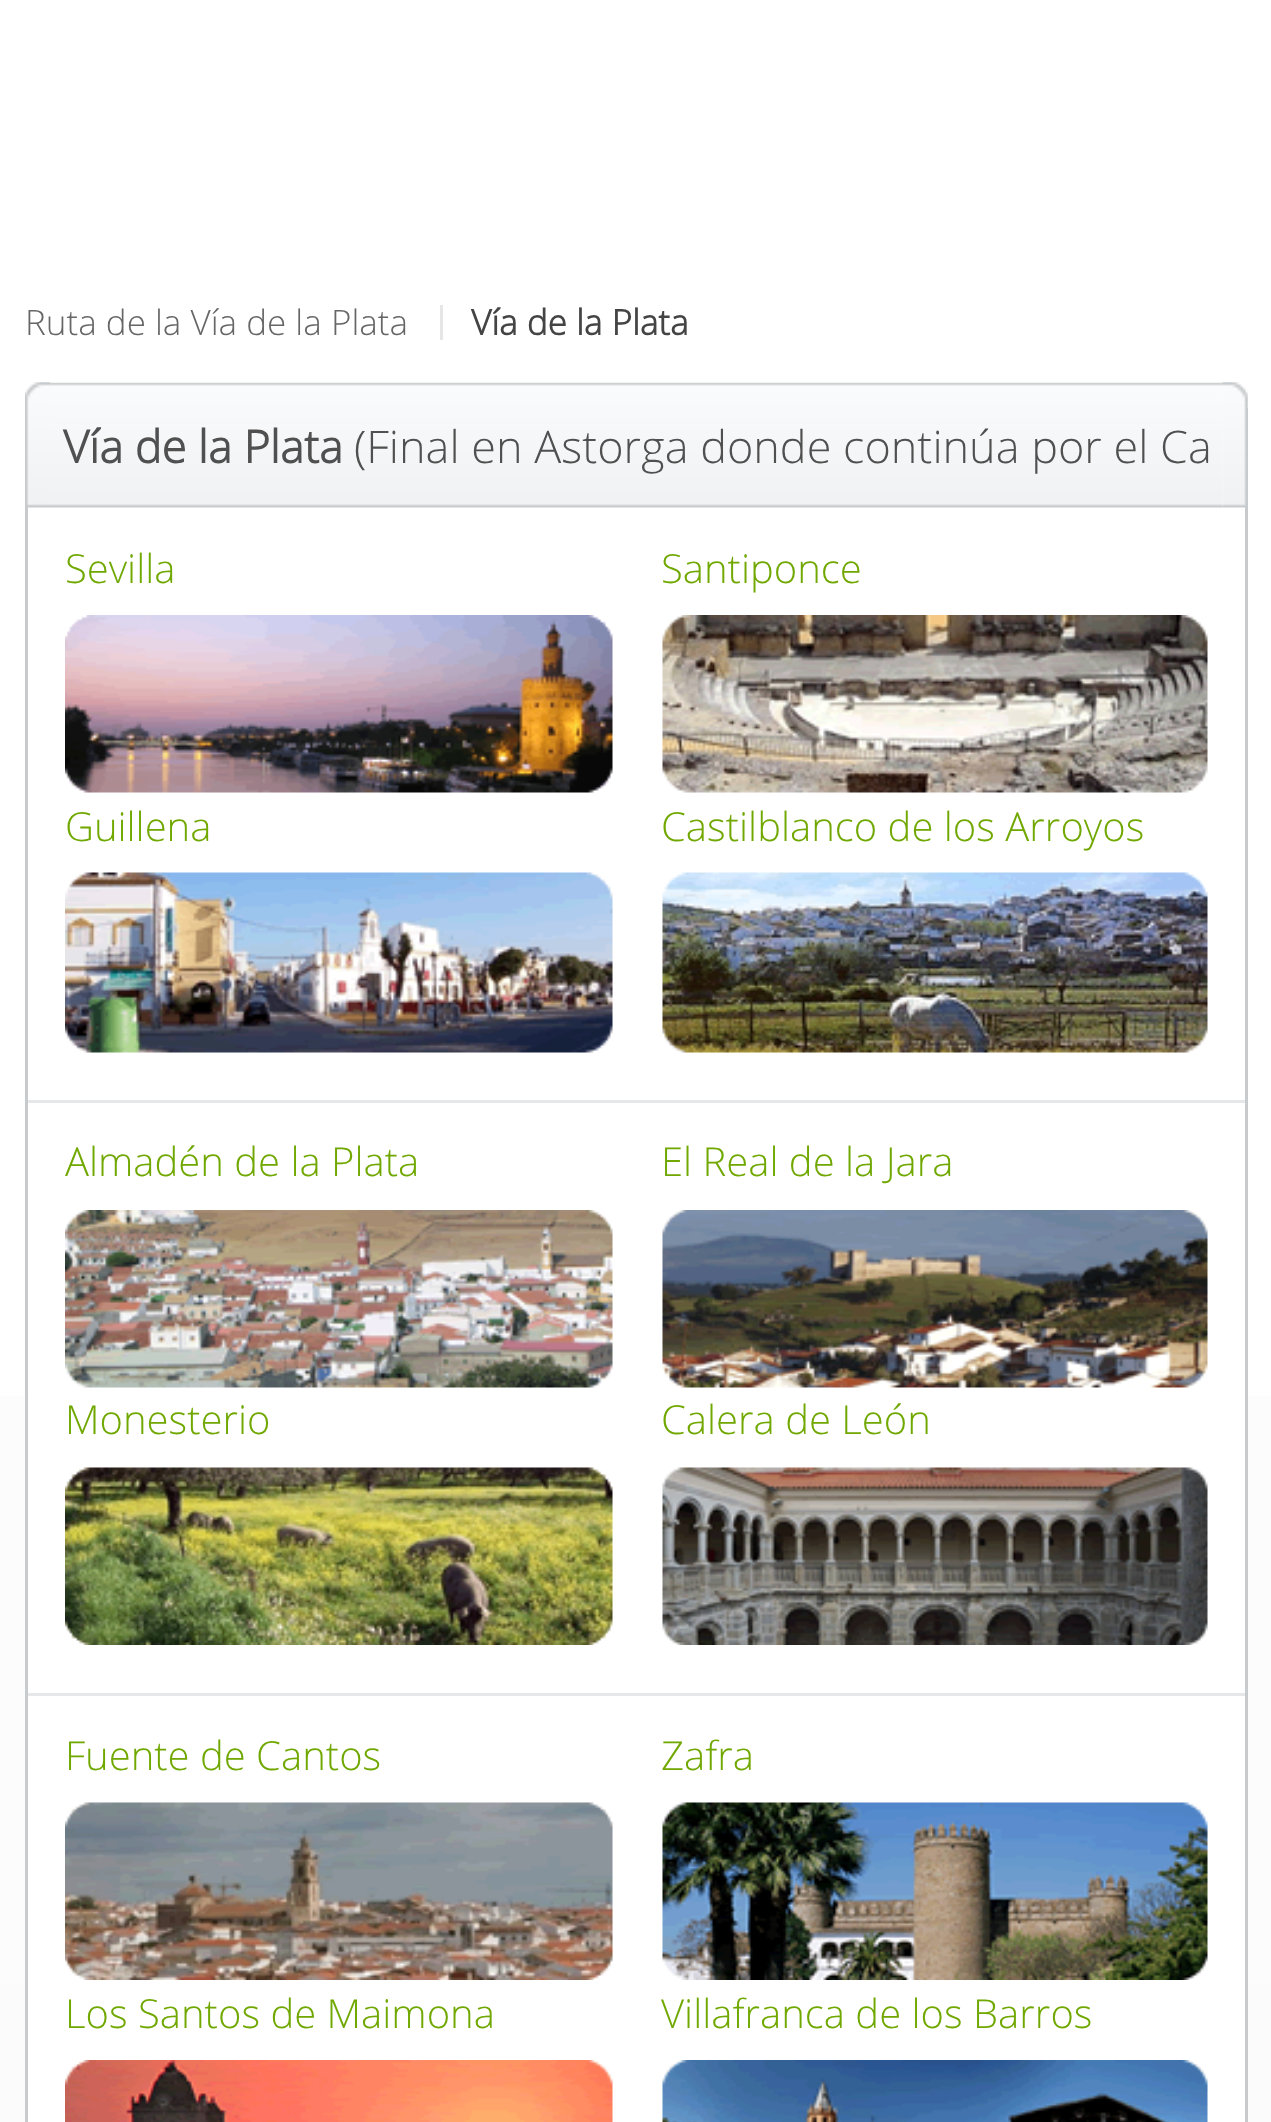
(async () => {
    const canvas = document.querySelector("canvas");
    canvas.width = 1271;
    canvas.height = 2122;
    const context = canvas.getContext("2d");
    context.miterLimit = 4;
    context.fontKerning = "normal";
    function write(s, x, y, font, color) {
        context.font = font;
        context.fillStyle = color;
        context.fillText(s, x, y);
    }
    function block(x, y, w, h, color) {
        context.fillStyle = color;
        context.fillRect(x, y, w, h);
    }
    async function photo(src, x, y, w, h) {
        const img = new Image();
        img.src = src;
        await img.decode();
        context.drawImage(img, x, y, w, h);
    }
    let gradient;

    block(0, 0, 1271, 2122, "rgb(255, 255, 255)");
    gradient = context.createLinearGradient(636, 0, 636, 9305);
    gradient.addColorStop(0, "rgb(255, 255, 255)");
    gradient.addColorStop(0.6, "rgb(245, 245, 245)");
    context.fillStyle = gradient;
    context.fillRect(0, 1396, 1271, 726);
    block(440, 305, 3, 35, "rgb(230, 230, 230)");
    write("Ruta de la Vía de la Plata", 25, 335, "300 35px Open Sans", "rgb(102, 102, 102)");
    write("Vía de la Plata", 471, 335, "bold 35px Open Sans", "rgb(68, 68, 68)");
    await photo("media/1.png", 25, 382, 25, 17);
    await photo("media/2.png", 1222, 382, 26, 26);
    block(25, 507, 3, 1615, "rgb(200, 203, 205)");
    await photo("media/3.png", 25, 382, 25, 126);
    block(1245, 408, 3, 1714, "rgb(200, 203, 205)");
    await photo("media/4.png", 1222, 382, 26, 126);
    await photo("media/5.png", 50, 382, 1173, 126);
    write("Vía de la Plata", 63, 463, "bold 45px Open Sans", "rgb(80, 80, 80)");
    write("(Final en Astorga donde continúa por el Ca", 354, 463, "300 45px Open Sans", "rgb(80, 80, 80)");
    block(28, 1396, 1217, 726, "rgb(255, 255, 255)");
    write("Sevilla", 65, 583, "300 40px Open Sans", "rgb(112, 168, 0)");
    await photo("media/6.png", 65, 615, 548, 178);
    write("Santiponce", 661, 583, "300 40px Open Sans", "rgb(112, 168, 0)");
    await photo("media/7.png", 662, 615, 546, 178);
    write("Guillena", 65, 841, "300 40px Open Sans", "rgb(112, 168, 0)");
    await photo("media/8.png", 65, 872, 548, 181);
    write("Castilblanco de los Arroyos", 661, 841, "300 40px Open Sans", "rgb(112, 168, 0)");
    await photo("media/9.png", 662, 872, 546, 181);
    block(28, 1100, 1217, 3, "rgb(230, 231, 232)");
    write("Almadén de la Plata", 65, 1176, "300 40px Open Sans", "rgb(112, 168, 0)");
    await photo("media/10.png", 65, 1210, 548, 178);
    write("El Real de la Jara", 661, 1176, "300 40px Open Sans", "rgb(112, 168, 0)");
    await photo("media/11.png", 662, 1210, 546, 178);
    write("Monesterio", 65, 1434, "300 40px Open Sans", "rgb(112, 168, 0)");
    await photo("media/12.png", 65, 1467, 548, 178);
    write("Calera de León", 661, 1434, "300 40px Open Sans", "rgb(112, 168, 0)");
    await photo("media/13.png", 662, 1467, 546, 178);
    block(28, 1693, 1217, 3, "rgb(230, 231, 232)");
    write("Fuente de Cantos", 65, 1770, "300 40px Open Sans", "rgb(112, 168, 0)");
    await photo("media/14.png", 65, 1802, 548, 178);
    write("Zafra", 661, 1770, "300 40px Open Sans", "rgb(112, 168, 0)");
    await photo("media/15.png", 662, 1802, 546, 178);
    write("Los Santos de Maimona", 65, 2028, "300 40px Open Sans", "rgb(112, 168, 0)");
    await photo("media/16.png", 65, 2060, 548, 62);
    write("Villafranca de los Barros", 661, 2028, "300 40px Open Sans", "rgb(112, 168, 0)");
    await photo("media/17.png", 662, 2060, 546, 62);
})();
